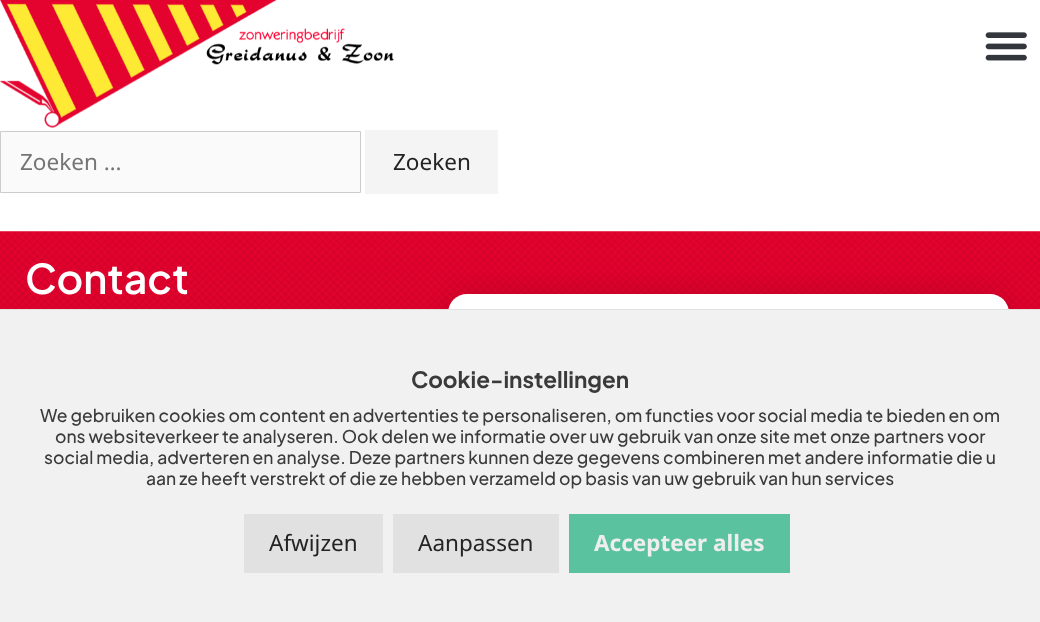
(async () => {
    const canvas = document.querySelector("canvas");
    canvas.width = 1040;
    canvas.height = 622;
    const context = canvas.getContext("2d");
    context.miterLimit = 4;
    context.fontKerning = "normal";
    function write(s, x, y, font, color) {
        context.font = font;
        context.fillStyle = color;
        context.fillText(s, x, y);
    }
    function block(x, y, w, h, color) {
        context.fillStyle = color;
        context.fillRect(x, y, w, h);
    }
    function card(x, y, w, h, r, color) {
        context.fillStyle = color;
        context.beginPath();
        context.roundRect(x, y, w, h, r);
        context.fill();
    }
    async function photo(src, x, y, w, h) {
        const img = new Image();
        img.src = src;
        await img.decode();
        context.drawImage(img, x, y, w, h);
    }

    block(0, 0, 1040, 622, "rgb(255, 255, 255)");
    await photo("media/1.png", 0, 0, 394, 128);
    await photo("media/2.png", 985, 32, 42, 29);
    context.fillStyle = "rgb(250, 250, 250)";
    context.beginPath();
    context.rect(0.5, 131.5, 360, 61);
    context.fill();
    context.strokeStyle = "rgb(204, 204, 204)";
    context.stroke();
    write("Zoeken …", 20, 170, "22.5px Noto Sans", "rgb(117, 117, 117)");
    block(365, 130, 133, 64, "rgb(244, 244, 244)");
    write("Zoeken", 393, 170, "22.5px Noto Sans", "rgb(35, 35, 35)");
    await photo("media/3.png", 0, 231, 1040, 78);
    write("Contact", 25, 294, "600 41px Plus Jakarta Sans", "rgb(255, 255, 255)");
    context.fillStyle = "rgba(0, 0, 0, 0.21)";
    context.filter = "blur(14.5px)";
    context.beginPath();
    context.roundRect(455, 301, 546, 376, 11);
    context.fill();
    context.filter = "none";
    card(448, 294, 561, 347, 19, "rgb(255, 255, 255)");
    block(0, 310, 1040, 312, "rgb(241, 241, 241)");
    block(0, 309, 1040, 1, "rgb(225, 225, 225)");
    write("Cookie-instellingen", 411, 388, "bold 22.5px Plus Jakarta Sans", "rgb(58, 58, 58)");
    write("We gebruiken cookies om content en advertenties te personaliseren, om functies voor social media te bieden en om", 40, 422, "500 17.5px Plus Jakarta Sans", "rgb(58, 58, 58)");
    write("ons websiteverkeer te analyseren. Ook delen we informatie over uw gebruik van onze site met onze partners voor", 55, 443, "500 17.5px Plus Jakarta Sans", "rgb(58, 58, 58)");
    write("social media, adverteren en analyse. Deze partners kunnen deze gegevens combineren met andere informatie die u", 44, 464, "500 17.5px Plus Jakarta Sans", "rgb(58, 58, 58)");
    write("aan ze heeft verstrekt of die ze hebben verzameld op basis van uw gebruik van hun services", 146, 485, "500 17.5px Plus Jakarta Sans", "rgb(58, 58, 58)");
    block(244, 514, 139, 59, "rgb(225, 225, 225)");
    write("Afwijzen", 269, 551, "22.5px Noto Sans", "rgb(35, 35, 35)");
    block(393, 514, 166, 59, "rgb(225, 225, 225)");
    write("Aanpassen", 418, 551, "22.5px Noto Sans", "rgb(35, 35, 35)");
    block(569, 514, 221, 59, "rgb(91, 194, 159)");
    write("Accepteer alles", 594, 551, "bold 22.5px Noto Sans", "rgb(238, 238, 238)");
})();
